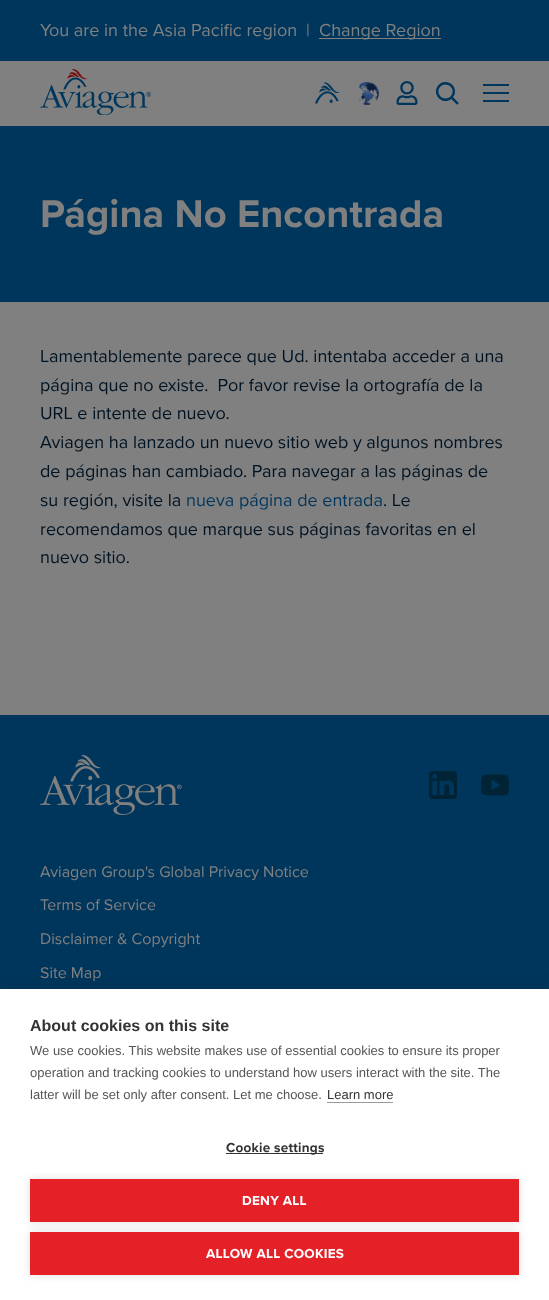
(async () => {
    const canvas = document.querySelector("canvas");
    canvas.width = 549;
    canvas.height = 1300;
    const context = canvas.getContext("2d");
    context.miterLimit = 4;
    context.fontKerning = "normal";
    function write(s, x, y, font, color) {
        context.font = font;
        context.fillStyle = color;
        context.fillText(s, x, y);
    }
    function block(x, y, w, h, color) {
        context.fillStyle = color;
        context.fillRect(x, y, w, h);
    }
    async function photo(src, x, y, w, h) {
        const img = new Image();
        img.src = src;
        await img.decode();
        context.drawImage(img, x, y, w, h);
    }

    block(0, 0, 549, 1300, "rgb(128, 128, 128)");
    block(0, 0, 549, 61, "rgb(0, 54, 92)");
    write("You are in the Asia Pacific region", 40, 36, "18px Proxima Nova", "rgb(128, 128, 128)");
    write("|", 306, 36, "18px Proxima Nova", "rgb(128, 128, 128)");
    block(319, 38, 122, 1, "rgb(128, 128, 128)");
    write("Change Region", 319, 36, "18px Proxima Nova", "rgb(128, 128, 128)");
    await photo("media/1.png", 40, 69, 111, 46);
    await photo("media/2.png", 315, 82, 24, 22);
    await photo("media/3.png", 358, 82, 21, 23);
    await photo("media/4.png", 396, 81, 22, 24);
    await photo("media/5.png", 435, 82, 24, 23);
    block(483, 84, 26, 2, "rgb(0, 54, 92)");
    block(483, 92, 26, 2, "rgb(0, 54, 92)");
    block(483, 100, 26, 2, "rgb(0, 54, 92)");
    block(0, 126, 549, 176, "rgb(0, 54, 92)");
    write("Página No Encontrada", 40, 227, "bold 40px Proxima Nova", "rgb(128, 128, 128)");
    write("Lamentablemente parece que Ud. intentaba acceder a una", 40, 362, "18px Proxima Nova", "rgb(0, 19, 34)");
    write("página que no existe.  Por favor revise la ortografía de la", 40, 391, "18px Proxima Nova", "rgb(0, 19, 34)");
    write("URL e intente de nuevo.", 40, 419, "18px Proxima Nova", "rgb(0, 19, 34)");
    write("Aviagen ha lanzado un nuevo sitio web y algunos nombres", 40, 448, "18px Proxima Nova", "rgb(0, 19, 34)");
    write("de páginas han cambiado. Para navegar a las páginas de", 40, 477, "18px Proxima Nova", "rgb(0, 19, 34)");
    write("su región, visite la", 40, 506, "18px Proxima Nova", "rgb(0, 19, 34)");
    write("nueva página de entrada", 186, 506, "18px Proxima Nova", "rgb(0, 54, 92)");
    write(". Le", 383, 506, "18px Proxima Nova", "rgb(0, 19, 34)");
    write("recomendamos que marque sus páginas favoritas en el", 40, 535, "18px Proxima Nova", "rgb(0, 19, 34)");
    write("nuevo sitio.", 40, 563, "18px Proxima Nova", "rgb(0, 19, 34)");
    block(0, 715, 549, 274, "rgb(0, 54, 92)");
    await photo("media/6.png", 40, 755, 142, 60);
    await photo("media/7.png", 429, 771, 28, 28);
    await photo("media/8.png", 481, 774, 28, 22);
    write("Aviagen Group's Global Privacy Notice", 40, 877, "16px Proxima Nova", "rgb(128, 128, 128)");
    write("Terms of Service", 40, 910, "16px Proxima Nova", "rgb(128, 128, 128)");
    write("Disclaimer & Copyright", 40, 944, "16px Proxima Nova", "rgb(128, 128, 128)");
    write("Site Map", 40, 978, "16px Proxima Nova", "rgb(128, 128, 128)");
    context.fillStyle = "rgba(0, 0, 0, 0.1)";
    context.filter = "blur(10px)";
    context.beginPath();
    context.rect(0, 989, 549, 311);
    context.fill();
    context.filter = "none";
    block(0, 989, 549, 311, "rgb(255, 255, 255)");
    write("About cookies on this site", 30, 1031, "bold 16px Liberation Sans", "rgb(51, 51, 51)");
    write("We use cookies. This website makes use of essential cookies to ensure its proper", 30, 1055, "13px Liberation Sans", "rgb(85, 85, 85)");
    write("operation and tracking cookies to understand how users interact with the site. The", 30, 1077, "13px Liberation Sans", "rgb(85, 85, 85)");
    write("latter will be set only after consent. Let me choose.", 30, 1099, "13px Liberation Sans", "rgb(85, 85, 85)");
    write("Learn more", 327, 1099, "13px Liberation Sans", "rgb(51, 51, 51)");
    block(327, 1102, 66, 1, "rgb(153, 153, 153)");
    block(226, 1153, 97, 1, "rgb(51, 51, 51)");
    context.letterSpacing = "0.25px";
    write("Cookie settings", 226, 1152, "bold 13.5px Proxima Nova", "rgb(51, 51, 51)");
    context.fillStyle = "rgba(0, 0, 0, 0.12)";
    context.filter = "blur(5px)";
    context.beginPath();
    context.rect(30, 1179, 489, 43);
    context.fill();
    context.filter = "none";
    block(30, 1179, 489, 43, "rgb(228, 33, 39)");
    write("DENY ALL", 242, 1205, "bold 13.5px Proxima Nova", "rgb(255, 255, 255)");
    context.fillStyle = "rgba(0, 0, 0, 0.12)";
    context.filter = "blur(5px)";
    context.beginPath();
    context.rect(30, 1232, 489, 43);
    context.fill();
    context.filter = "none";
    block(30, 1232, 489, 43, "rgb(228, 33, 39)");
    write("ALLOW ALL COOKIES", 206, 1258, "bold 13.5px Proxima Nova", "rgb(255, 255, 255)");
})();
